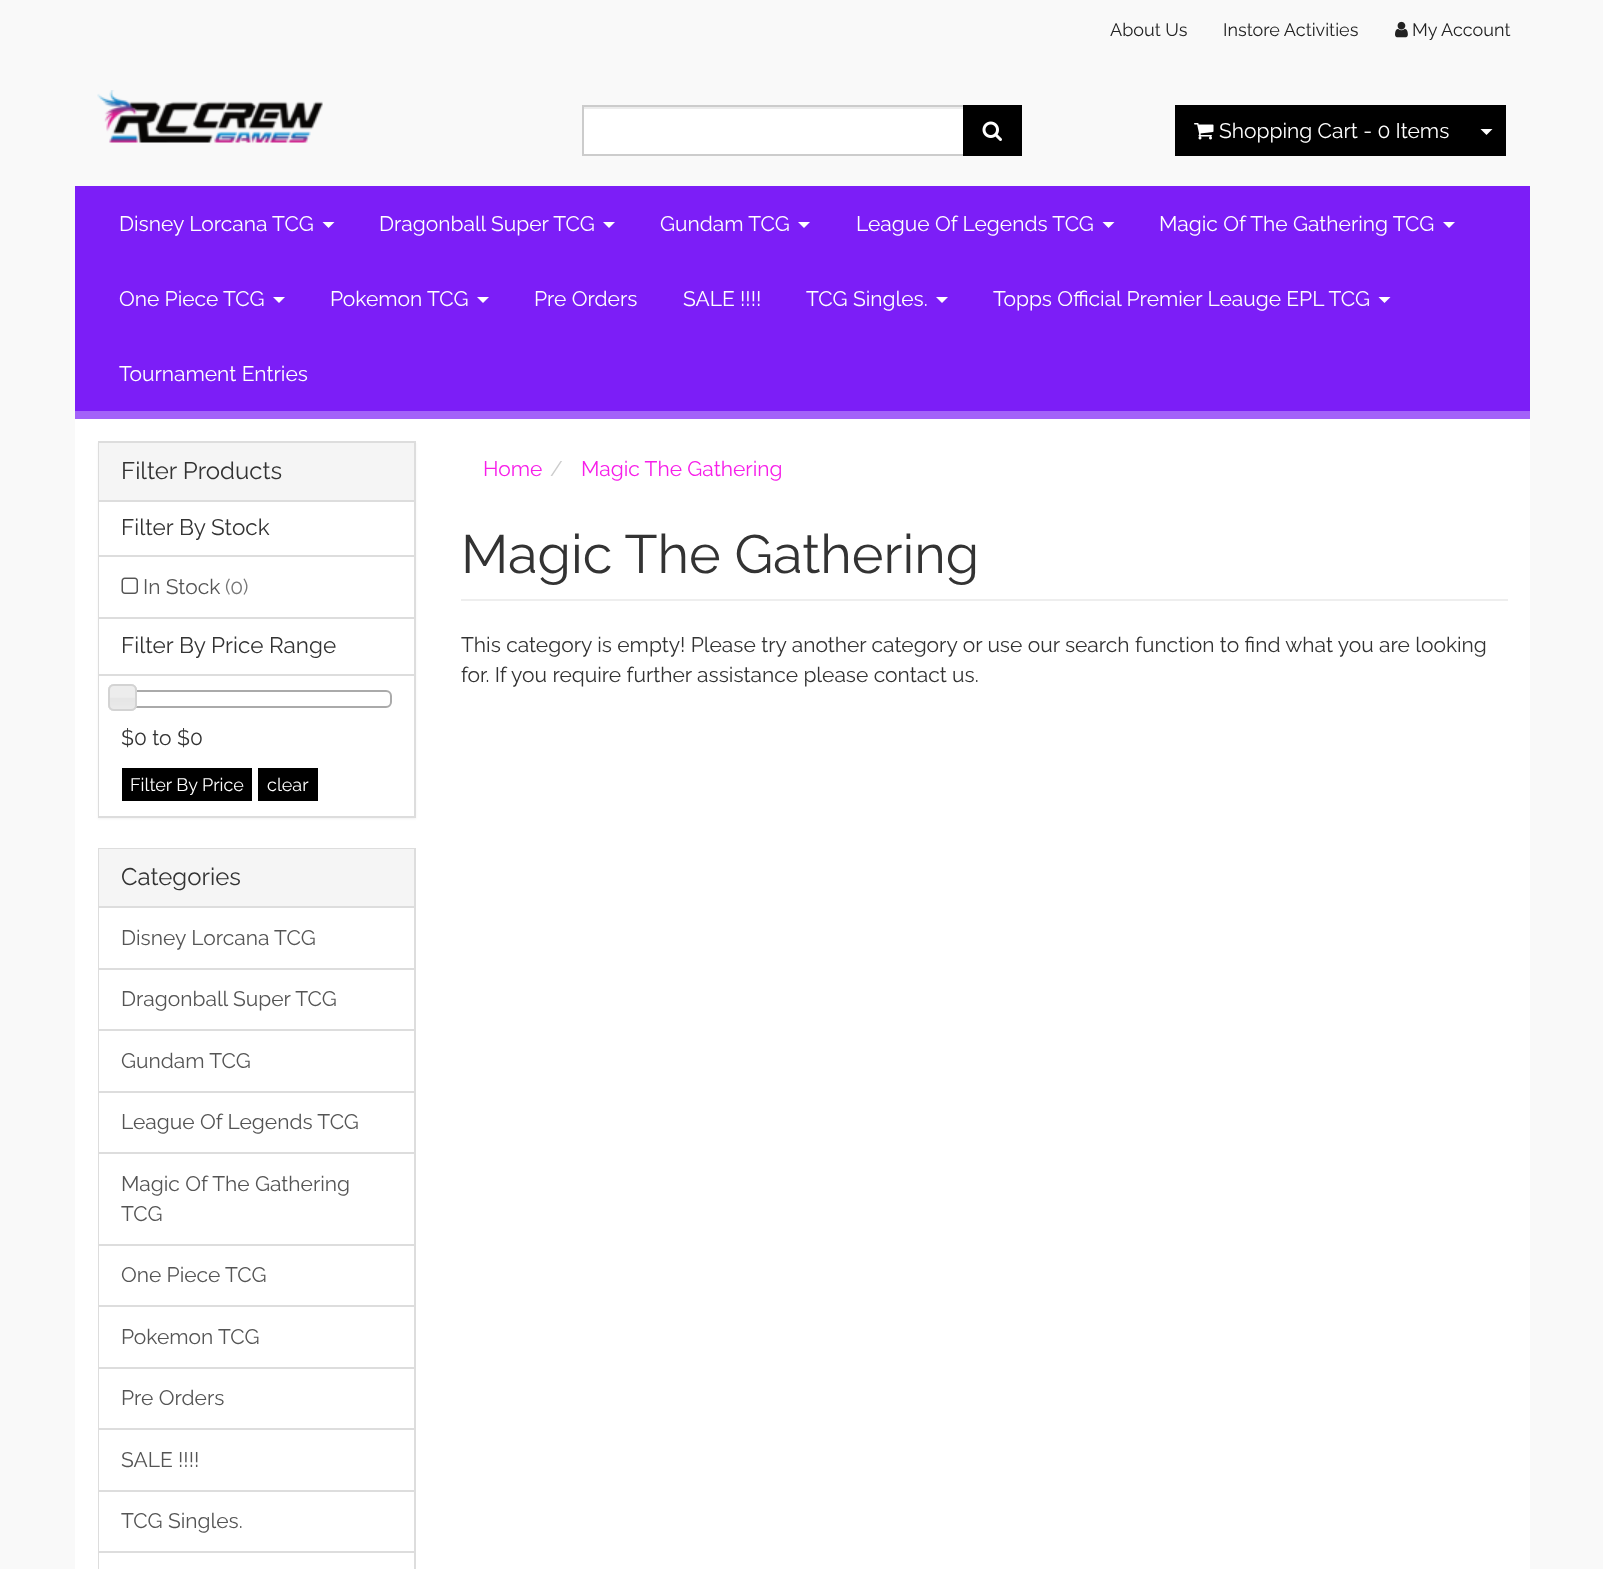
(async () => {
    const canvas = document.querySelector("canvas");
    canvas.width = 1603;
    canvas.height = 1569;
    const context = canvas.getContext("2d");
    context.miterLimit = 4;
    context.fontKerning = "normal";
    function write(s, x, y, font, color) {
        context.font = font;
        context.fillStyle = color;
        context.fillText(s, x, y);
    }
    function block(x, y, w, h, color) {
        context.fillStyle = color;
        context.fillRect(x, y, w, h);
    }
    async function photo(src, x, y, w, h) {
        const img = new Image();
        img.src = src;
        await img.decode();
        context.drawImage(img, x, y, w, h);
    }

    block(0, 0, 1603, 1569, "rgb(249, 249, 249)");
    write("About Us", 1110, 36, "18px Raleway", "rgb(34, 34, 34)");
    write("Instore Activities", 1223, 36, "18px Raleway", "rgb(34, 34, 34)");
    await photo("media/1.png", 1395, 21, 13, 17);
    write("My Account", 1412, 36, "18px Raleway", "rgb(34, 34, 34)");
    await photo("media/2.png", 97, 90, 226, 53);
    block(584, 109, 379, 45, "rgb(255, 255, 255)");
    block(584, 107, 379, 2, "rgb(236, 236, 236)");
    context.strokeStyle = "rgb(204, 204, 204)";
    context.lineWidth = 2;
    context.strokeRect(583, 106, 381, 49);
    block(963, 105, 59, 51, "rgb(0, 0, 0)");
    await photo("media/3.png", 982, 121, 20, 20);
    block(1175, 105, 331, 51, "rgb(0, 0, 0)");
    await photo("media/4.png", 1194, 123, 20, 17);
    write("Shopping Cart - 0 Items", 1219, 138, "21px Raleway", "rgb(255, 255, 255)");
    context.beginPath();
    context.moveTo(1480.5, 129);
    context.lineTo(1492.5, 129);
    context.lineTo(1486.5, 135);
    context.closePath();
    context.fill();
    block(75, 186, 1455, 225, "rgb(124, 30, 247)");
    block(75, 411, 1455, 8, "rgb(163, 98, 249)");
    write("Disney Lorcana TCG", 119, 231, "21px Raleway", "rgb(255, 255, 255)");
    context.beginPath();
    context.moveTo(322.5, 222);
    context.lineTo(334.5, 222);
    context.lineTo(328.5, 228);
    context.closePath();
    context.fill();
    write("Dragonball Super TCG", 379, 231, "21px Raleway", "rgb(255, 255, 255)");
    context.beginPath();
    context.moveTo(603, 222);
    context.lineTo(615, 222);
    context.lineTo(609, 228);
    context.closePath();
    context.fill();
    write("Gundam TCG", 660, 231, "21px Raleway", "rgb(255, 255, 255)");
    context.beginPath();
    context.moveTo(798, 222);
    context.lineTo(810, 222);
    context.lineTo(804, 228);
    context.closePath();
    context.fill();
    write("League Of Legends TCG", 856, 231, "21px Raleway", "rgb(255, 255, 255)");
    context.beginPath();
    context.moveTo(1102.5, 222);
    context.lineTo(1114.5, 222);
    context.lineTo(1108.5, 228);
    context.closePath();
    context.fill();
    write("Magic Of The Gathering TCG", 1159, 231, "21px Raleway", "rgb(255, 255, 255)");
    context.beginPath();
    context.moveTo(1443, 222);
    context.lineTo(1455, 222);
    context.lineTo(1449, 228);
    context.closePath();
    context.fill();
    write("One Piece TCG", 119, 306, "21px Raleway", "rgb(255, 255, 255)");
    context.beginPath();
    context.moveTo(273, 297);
    context.lineTo(285, 297);
    context.lineTo(279, 303);
    context.closePath();
    context.fill();
    write("Pokemon TCG", 330, 306, "21px Raleway", "rgb(255, 255, 255)");
    context.beginPath();
    context.moveTo(477, 297);
    context.lineTo(489, 297);
    context.lineTo(483, 303);
    context.closePath();
    context.fill();
    write("Pre Orders", 534, 306, "21px Raleway", "rgb(255, 255, 255)");
    write("SALE !!!!", 683, 306, "21px Raleway", "rgb(255, 255, 255)");
    write("TCG Singles.", 806, 306, "21px Raleway", "rgb(255, 255, 255)");
    context.beginPath();
    context.moveTo(936, 297);
    context.lineTo(948, 297);
    context.lineTo(942, 303);
    context.closePath();
    context.fill();
    write("Topps Official Premier Leauge EPL TCG", 993, 306, "21px Raleway", "rgb(255, 255, 255)");
    context.beginPath();
    context.moveTo(1378.5, 297);
    context.lineTo(1390.5, 297);
    context.lineTo(1384.5, 303);
    context.closePath();
    context.fill();
    write("Tournament Entries", 119, 381, "21px Raleway", "rgb(255, 255, 255)");
    block(75, 419, 1455, 1150, "rgb(255, 255, 255)");
    context.fillStyle = "rgba(0, 0, 0, 0.05)";
    context.filter = "blur(1px)";
    context.beginPath();
    context.rect(98, 443, 318, 376);
    context.fill();
    context.filter = "none";
    context.strokeStyle = "rgb(221, 221, 221)";
    context.strokeRect(99, 442, 316, 375);
    block(99, 443, 315, 57, "rgb(245, 245, 245)");
    write("Filter Products", 121, 479, "24px Raleway", "rgb(51, 51, 51)");
    block(99, 502, 315, 53, "rgb(255, 255, 255)");
    block(99, 500, 315, 2, "rgb(221, 221, 221)");
    write("Filter By Stock", 121, 535, "22.5px Raleway", "rgb(51, 51, 51)");
    block(99, 557, 315, 60, "rgb(255, 255, 255)");
    block(99, 555, 315, 2, "rgb(221, 221, 221)");
    await photo("media/5.png", 121, 577, 17, 17);
    write("In Stock", 143, 594, "21px Raleway", "rgb(85, 85, 85)");
    write("(0)", 225, 594, "21px Raleway", "rgb(119, 119, 119)");
    block(99, 619, 315, 55, "rgb(255, 255, 255)");
    block(99, 617, 315, 2, "rgb(221, 221, 221)");
    write("Filter By Price Range", 121, 653, "22.5px Raleway", "rgb(51, 51, 51)");
    block(99, 676, 315, 140, "rgb(255, 255, 255)");
    block(99, 674, 315, 2, "rgb(221, 221, 221)");
    context.beginPath();
    context.roundRect(123, 691, 268, 16, 5);
    context.strokeStyle = "rgb(170, 170, 170)";
    context.stroke();
    await photo("media/6.png", 108, 684, 28, 27);
    context.beginPath();
    context.roundRect(109, 685, 27, 25, 5);
    context.strokeStyle = "rgb(211, 211, 211)";
    context.stroke();
    await photo("media/7.png", 108, 684, 28, 27);
    context.beginPath();
    context.roundRect(109, 685, 27, 25, 5);
    context.stroke();
    write("$0 to $0", 121, 745, "21px Raleway", "rgb(51, 51, 51)");
    block(122, 768, 130, 33, "rgb(0, 0, 0)");
    write("Filter By Price", 130, 791, "18px Raleway", "rgb(255, 255, 255)");
    block(258, 768, 60, 33, "rgb(0, 0, 0)");
    write("clear", 267, 791, "18px Raleway", "rgb(255, 255, 255)");
    context.strokeStyle = "rgb(221, 221, 221)";
    context.strokeRect(99, 849, 316, 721);
    block(99, 849, 315, 57, "rgb(245, 245, 245)");
    block(99, 906, 315, 2, "rgb(221, 221, 221)");
    write("Categories", 121, 885, "24px Raleway", "rgb(51, 51, 51)");
    block(99, 908, 1, 60, "rgb(255, 255, 255)");
    write("Disney Lorcana TCG", 121, 945, "21px Raleway", "rgb(85, 85, 85)");
    block(99, 970, 1, 59, "rgb(255, 255, 255)");
    block(99, 968, 315, 2, "rgb(221, 221, 221)");
    block(99, 1029, 315, 2, "rgb(221, 221, 221)");
    write("Dragonball Super TCG", 121, 1006, "21px Raleway", "rgb(85, 85, 85)");
    block(99, 1031, 1, 60, "rgb(255, 255, 255)");
    write("Gundam TCG", 121, 1068, "21px Raleway", "rgb(85, 85, 85)");
    block(99, 1093, 1, 59, "rgb(255, 255, 255)");
    block(99, 1091, 315, 2, "rgb(221, 221, 221)");
    block(99, 1152, 315, 2, "rgb(221, 221, 221)");
    write("League Of Legends TCG", 121, 1129, "21px Raleway", "rgb(85, 85, 85)");
    block(99, 1154, 1, 90, "rgb(255, 255, 255)");
    write("Magic Of The Gathering", 121, 1191, "21px Raleway", "rgb(85, 85, 85)");
    write("TCG", 121, 1221, "21px Raleway", "rgb(85, 85, 85)");
    block(99, 1246, 1, 59, "rgb(255, 255, 255)");
    block(99, 1244, 315, 2, "rgb(221, 221, 221)");
    block(99, 1305, 315, 2, "rgb(221, 221, 221)");
    write("One Piece TCG", 121, 1282, "21px Raleway", "rgb(85, 85, 85)");
    block(99, 1307, 1, 60, "rgb(255, 255, 255)");
    write("Pokemon TCG", 121, 1344, "21px Raleway", "rgb(85, 85, 85)");
    block(99, 1369, 1, 59, "rgb(255, 255, 255)");
    block(99, 1367, 315, 2, "rgb(221, 221, 221)");
    write("Pre Orders", 121, 1405, "21px Raleway", "rgb(85, 85, 85)");
    block(99, 1430, 1, 60, "rgb(255, 255, 255)");
    block(99, 1428, 315, 2, "rgb(221, 221, 221)");
    write("SALE !!!!", 121, 1467, "21px Raleway", "rgb(85, 85, 85)");
    block(99, 1492, 1, 59, "rgb(255, 255, 255)");
    block(99, 1490, 315, 2, "rgb(221, 221, 221)");
    block(99, 1551, 315, 2, "rgb(221, 221, 221)");
    write("TCG Singles.", 121, 1528, "21px Raleway", "rgb(85, 85, 85)");
    block(99, 1553, 1, 16, "rgb(255, 255, 255)");
    write("Home", 483, 476, "21px Raleway", "rgb(247, 30, 233)");
    write("/", 550, 476, "21px Raleway", "rgb(204, 204, 204)");
    write("Magic The Gathering", 581, 476, "21px Raleway", "rgb(247, 30, 233)");
    block(461, 599, 1047, 2, "rgb(238, 238, 238)");
    write("Magic The Gathering", 461, 573, "54px Raleway", "rgb(51, 51, 51)");
    write("This category is empty! Please try another category or use our search function to find what you are looking", 461, 652, "21px Raleway", "rgb(51, 51, 51)");
    write("for. If you require further assistance please contact us.", 461, 682, "21px Raleway", "rgb(51, 51, 51)");
})();
